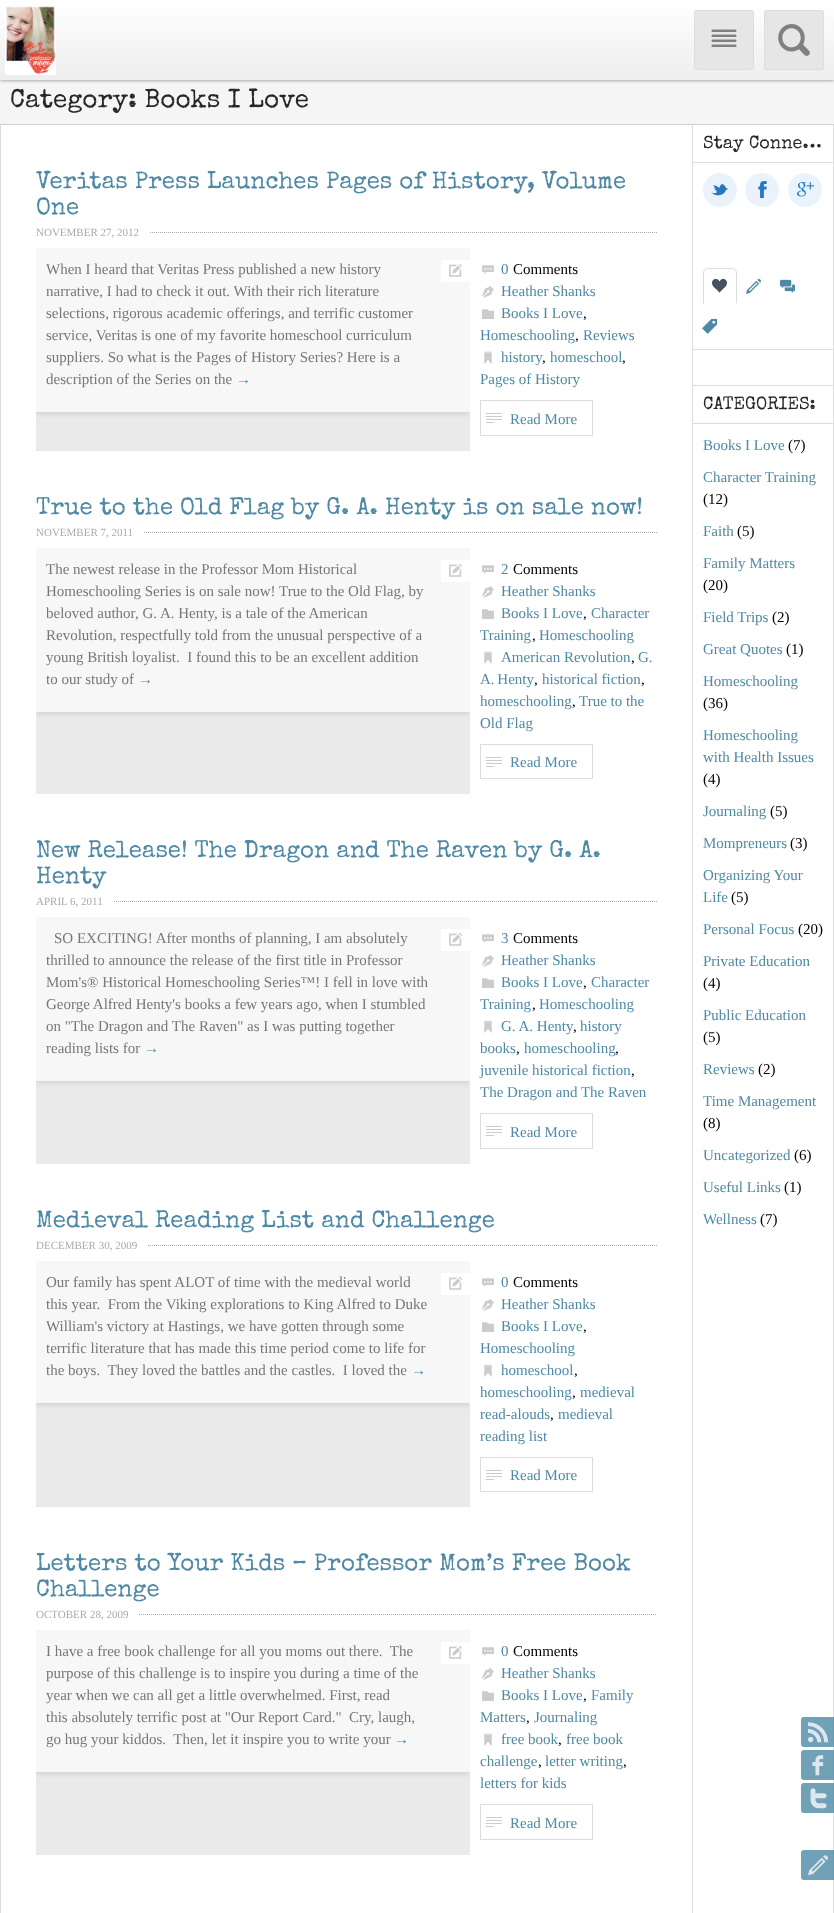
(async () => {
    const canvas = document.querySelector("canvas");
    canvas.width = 834;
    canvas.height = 1913;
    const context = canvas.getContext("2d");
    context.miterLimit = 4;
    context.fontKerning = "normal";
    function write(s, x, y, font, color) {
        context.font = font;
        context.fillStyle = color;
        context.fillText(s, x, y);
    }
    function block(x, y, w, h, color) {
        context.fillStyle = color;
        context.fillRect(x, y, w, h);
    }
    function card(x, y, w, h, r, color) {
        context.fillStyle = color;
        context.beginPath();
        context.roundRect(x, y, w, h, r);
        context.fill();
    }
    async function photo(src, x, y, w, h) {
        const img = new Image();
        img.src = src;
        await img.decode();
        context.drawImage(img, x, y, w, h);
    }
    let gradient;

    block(0, 0, 834, 1913, "rgb(245, 245, 245)");
    context.fillStyle = "rgba(0, 0, 0, 0.3)";
    context.filter = "blur(1.5px)";
    context.beginPath();
    context.rect(0, 1, 834, 80);
    context.fill();
    context.filter = "none";
    gradient = context.createLinearGradient(65, 0, 65, 80);
    gradient.addColorStop(0, "rgb(255, 255, 255)");
    gradient.addColorStop(1, "rgb(238, 238, 238)");
    context.fillStyle = gradient;
    context.fillRect(0, 0, 130, 80);
    await photo("media/1.png", 5, 6, 51, 69);
    gradient = context.createLinearGradient(452, 0, 452, 80);
    gradient.addColorStop(0, "rgb(255, 255, 255)");
    gradient.addColorStop(1, "rgb(238, 238, 238)");
    context.fillStyle = gradient;
    context.fillRect(130, 0, 644, 80);
    card(694, 10, 60, 60, 4, "rgb(230, 230, 230)");
    context.strokeStyle = "rgba(0, 0, 0, 0.04)";
    context.strokeRect(694.5, 10.5, 59, 59);
    await photo("media/2.png", 711, 29, 26, 18);
    gradient = context.createLinearGradient(804, 0, 804, 80);
    gradient.addColorStop(0, "rgb(255, 255, 255)");
    gradient.addColorStop(1, "rgb(238, 238, 238)");
    context.fillStyle = gradient;
    context.fillRect(774, 0, 60, 80);
    card(764, 10, 60, 60, 4, "rgb(230, 230, 230)");
    context.strokeRect(764.5, 10.5, 59, 59);
    await photo("media/3.png", 778, 24, 32, 32);
    block(0, 124, 834, 1, "rgb(208, 208, 208)");
    write("Category: Books I Love", 10, 107, "26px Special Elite", "rgb(39, 39, 39)");
    block(1, 125, 832, 1788, "rgb(255, 255, 255)");
    block(833, 125, 1, 1788, "rgb(221, 221, 221)");
    block(0, 125, 1, 1788, "rgb(221, 221, 221)");
    write("Veritas Press Launches Pages of History, Volume", 36, 188, "24px Special Elite", "rgb(78, 137, 165)");
    write("One", 36, 214, "24px Special Elite", "rgb(78, 137, 165)");
    write("NOVEMBER 27, 2012", 36, 236, "11px Liberation Serif", "rgb(170, 170, 170)");
    context.beginPath();
    context.moveTo(150, 232.5);
    context.lineTo(657, 232.5);
    context.strokeStyle = "rgb(170, 170, 170)";
    context.setLineDash([1, 1]);
    context.stroke();
    block(36, 412, 434, 39, "rgb(234, 234, 234)");
    context.save();
    context.beginPath();
    context.rect(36, 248, 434, 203);
    context.clip();
    context.fillStyle = "rgba(0, 0, 0, 0.1)";
    context.filter = "blur(2.5px)";
    context.beginPath();
    context.rect(36, 250, 434, 164);
    context.fill();
    context.filter = "none";
    context.restore();
    block(36, 248, 434, 164, "rgb(247, 247, 247)");
    write("When I heard that Veritas Press published a new history", 46, 274, "15px Liberation Serif", "rgb(119, 119, 119)");
    write("narrative, I had to check it out. With their rich literature", 46, 296, "15px Liberation Serif", "rgb(119, 119, 119)");
    write("selections, rigorous academic offerings, and terrific customer", 46, 318, "15px Liberation Serif", "rgb(119, 119, 119)");
    write("service, Veritas is one of my favorite homeschool curriculum", 46, 340, "15px Liberation Serif", "rgb(119, 119, 119)");
    write("suppliers. So what is the Pages of History Series? Here is a", 46, 362, "15px Liberation Serif", "rgb(119, 119, 119)");
    write("description of the Series on the", 46, 384, "15px Liberation Serif", "rgb(119, 119, 119)");
    write("→", 236, 384, "15px Liberation Serif", "rgb(78, 137, 165)");
    block(441, 260, 29, 22, "rgb(255, 255, 255)");
    await photo("media/4.png", 449, 263, 13, 14);
    await photo("media/5.png", 482, 265, 12, 9);
    write("0", 501, 274, "15px Liberation Serif", "rgb(78, 137, 165)");
    write("Comments", 513, 274, "15px Liberation Serif", "rgb(0, 0, 0)");
    await photo("media/6.png", 482, 285, 12, 13);
    write("Heather Shanks", 501, 296, "15px Liberation Serif", "rgb(78, 137, 165)");
    await photo("media/7.png", 482, 309, 12, 10);
    write("Books I Love", 501, 318, "15px Liberation Serif", "rgb(78, 137, 165)");
    write(",", 583, 318, "15px Liberation Serif", "rgb(0, 0, 0)");
    write("Homeschooling", 480, 340, "15px Liberation Serif", "rgb(78, 137, 165)");
    write(",", 575, 340, "15px Liberation Serif", "rgb(0, 0, 0)");
    write("Reviews", 583, 340, "15px Liberation Serif", "rgb(78, 137, 165)");
    await photo("media/8.png", 484, 351, 8, 13);
    write("history", 501, 362, "15px Liberation Serif", "rgb(78, 137, 165)");
    write(",", 542, 362, "15px Liberation Serif", "rgb(0, 0, 0)");
    write("homeschool", 550, 362, "15px Liberation Serif", "rgb(78, 137, 165)");
    write(",", 622, 362, "15px Liberation Serif", "rgb(0, 0, 0)");
    write("Pages of History", 480, 384, "15px Liberation Serif", "rgb(78, 137, 165)");
    context.strokeStyle = "rgb(221, 221, 221)";
    context.setLineDash([]);
    context.strokeRect(480.5, 400.5, 112, 35);
    await photo("media/9.png", 486, 413, 16, 10);
    write("Read More", 510, 424, "15px Liberation Serif", "rgb(78, 137, 165)");
    write("True to the Old Flag by G. A. Henty is on sale now!", 36, 514, "24px Special Elite", "rgb(78, 137, 165)");
    write("NOVEMBER 7, 2011", 36, 536, "11px Liberation Serif", "rgb(170, 170, 170)");
    context.beginPath();
    context.moveTo(144, 532.5);
    context.lineTo(657, 532.5);
    context.strokeStyle = "rgb(170, 170, 170)";
    context.setLineDash([1, 1]);
    context.stroke();
    block(36, 712, 434, 82, "rgb(234, 234, 234)");
    context.save();
    context.beginPath();
    context.rect(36, 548, 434, 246);
    context.clip();
    context.fillStyle = "rgba(0, 0, 0, 0.1)";
    context.filter = "blur(2.5px)";
    context.beginPath();
    context.rect(36, 550, 434, 164);
    context.fill();
    context.filter = "none";
    context.restore();
    block(36, 548, 434, 164, "rgb(247, 247, 247)");
    write("The newest release in the Professor Mom Historical", 46, 574, "15px Liberation Serif", "rgb(119, 119, 119)");
    write("Homeschooling Series is on sale now! True to the Old Flag, by", 46, 596, "15px Liberation Serif", "rgb(119, 119, 119)");
    write("beloved author, G. A. Henty, is a tale of the American", 46, 618, "15px Liberation Serif", "rgb(119, 119, 119)");
    write("Revolution, respectfully told from the unusual perspective of a", 46, 640, "15px Liberation Serif", "rgb(119, 119, 119)");
    write("young British loyalist.  I found this to be an excellent addition", 46, 662, "15px Liberation Serif", "rgb(119, 119, 119)");
    write("to our study of", 46, 684, "15px Liberation Serif", "rgb(119, 119, 119)");
    write("→", 138, 684, "15px Liberation Serif", "rgb(78, 137, 165)");
    block(441, 560, 29, 22, "rgb(255, 255, 255)");
    await photo("media/4.png", 449, 563, 13, 14);
    await photo("media/5.png", 482, 565, 12, 9);
    write("2", 501, 574, "15px Liberation Serif", "rgb(78, 137, 165)");
    write("Comments", 513, 574, "15px Liberation Serif", "rgb(0, 0, 0)");
    await photo("media/6.png", 482, 585, 12, 13);
    write("Heather Shanks", 501, 596, "15px Liberation Serif", "rgb(78, 137, 165)");
    await photo("media/7.png", 482, 609, 12, 10);
    write("Books I Love", 501, 618, "15px Liberation Serif", "rgb(78, 137, 165)");
    write(",", 583, 618, "15px Liberation Serif", "rgb(0, 0, 0)");
    write("Character", 591, 618, "15px Liberation Serif", "rgb(78, 137, 165)");
    write("Training", 480, 640, "15px Liberation Serif", "rgb(78, 137, 165)");
    write(",", 532, 640, "15px Liberation Serif", "rgb(0, 0, 0)");
    write("Homeschooling", 539, 640, "15px Liberation Serif", "rgb(78, 137, 165)");
    await photo("media/8.png", 484, 651, 8, 13);
    write("American Revolution", 501, 662, "15px Liberation Serif", "rgb(78, 137, 165)");
    write(",", 631, 662, "15px Liberation Serif", "rgb(0, 0, 0)");
    write("G.", 638, 662, "15px Liberation Serif", "rgb(78, 137, 165)");
    context.wordSpacing = "-1px";
    write("A. Henty", 480, 684, "15px Liberation Serif", "rgb(78, 137, 165)");
    context.wordSpacing = "0px";
    write(",", 534, 684, "15px Liberation Serif", "rgb(0, 0, 0)");
    write("historical fiction", 542, 684, "15px Liberation Serif", "rgb(78, 137, 165)");
    write(",", 641, 684, "15px Liberation Serif", "rgb(0, 0, 0)");
    write("homeschooling", 480, 706, "15px Liberation Serif", "rgb(78, 137, 165)");
    write(",", 572, 706, "15px Liberation Serif", "rgb(0, 0, 0)");
    write("True to the", 579, 706, "15px Liberation Serif", "rgb(78, 137, 165)");
    write("Old Flag", 480, 728, "15px Liberation Serif", "rgb(78, 137, 165)");
    context.strokeStyle = "rgb(221, 221, 221)";
    context.setLineDash([]);
    context.strokeRect(480.5, 744.5, 112, 34);
    await photo("media/9.png", 486, 757, 16, 10);
    write("Read More", 510, 767, "15px Liberation Serif", "rgb(78, 137, 165)");
    write("New Release! The Dragon and The Raven by G. A.", 36, 857, "24px Special Elite", "rgb(78, 137, 165)");
    write("Henty", 36, 883, "24px Special Elite", "rgb(78, 137, 165)");
    write("APRIL 6, 2011", 36, 905, "11px Liberation Serif", "rgb(170, 170, 170)");
    context.beginPath();
    context.moveTo(114, 901.5);
    context.lineTo(657, 901.5);
    context.strokeStyle = "rgb(170, 170, 170)";
    context.setLineDash([1, 1]);
    context.stroke();
    block(36, 1081, 434, 83, "rgb(234, 234, 234)");
    context.save();
    context.beginPath();
    context.rect(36, 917, 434, 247);
    context.clip();
    context.fillStyle = "rgba(0, 0, 0, 0.1)";
    context.filter = "blur(2.5px)";
    context.beginPath();
    context.rect(36, 919, 434, 164);
    context.fill();
    context.filter = "none";
    context.restore();
    block(36, 917, 434, 164, "rgb(247, 247, 247)");
    write("SO EXCITING! After months of planning, I am absolutely", 54, 943, "15px Liberation Serif", "rgb(119, 119, 119)");
    write("thrilled to announce the release of the first title in Professor", 46, 965, "15px Liberation Serif", "rgb(119, 119, 119)");
    write("Mom's® Historical Homeschooling Series™! I fell in love with", 46, 987, "15px Liberation Serif", "rgb(119, 119, 119)");
    write("George Alfred Henty's books a few years ago, when I stumbled", 46, 1009, "15px Liberation Serif", "rgb(119, 119, 119)");
    write("on \"The Dragon and The Raven\" as I was putting together", 46, 1031, "15px Liberation Serif", "rgb(119, 119, 119)");
    write("reading lists for", 46, 1053, "15px Liberation Serif", "rgb(119, 119, 119)");
    write("→", 144, 1053, "15px Liberation Serif", "rgb(78, 137, 165)");
    block(441, 929, 29, 22, "rgb(255, 255, 255)");
    await photo("media/4.png", 449, 932, 13, 14);
    await photo("media/5.png", 482, 934, 12, 9);
    write("3", 501, 943, "15px Liberation Serif", "rgb(78, 137, 165)");
    write("Comments", 513, 943, "15px Liberation Serif", "rgb(0, 0, 0)");
    await photo("media/6.png", 482, 954, 12, 13);
    write("Heather Shanks", 501, 965, "15px Liberation Serif", "rgb(78, 137, 165)");
    await photo("media/7.png", 482, 978, 12, 10);
    write("Books I Love", 501, 987, "15px Liberation Serif", "rgb(78, 137, 165)");
    write(",", 583, 987, "15px Liberation Serif", "rgb(0, 0, 0)");
    write("Character", 591, 987, "15px Liberation Serif", "rgb(78, 137, 165)");
    write("Training", 480, 1009, "15px Liberation Serif", "rgb(78, 137, 165)");
    write(",", 532, 1009, "15px Liberation Serif", "rgb(0, 0, 0)");
    write("Homeschooling", 539, 1009, "15px Liberation Serif", "rgb(78, 137, 165)");
    await photo("media/8.png", 484, 1020, 8, 13);
    write("G. A. Henty", 501, 1031, "15px Liberation Serif", "rgb(78, 137, 165)");
    write(",", 573, 1031, "15px Liberation Serif", "rgb(0, 0, 0)");
    write("history", 580, 1031, "15px Liberation Serif", "rgb(78, 137, 165)");
    write("books", 480, 1053, "15px Liberation Serif", "rgb(78, 137, 165)");
    write(",", 516, 1053, "15px Liberation Serif", "rgb(0, 0, 0)");
    write("homeschooling", 524, 1053, "15px Liberation Serif", "rgb(78, 137, 165)");
    write(",", 615, 1053, "15px Liberation Serif", "rgb(0, 0, 0)");
    write("juvenile historical fiction", 480, 1075, "15px Liberation Serif", "rgb(78, 137, 165)");
    write(",", 631, 1075, "15px Liberation Serif", "rgb(0, 0, 0)");
    write("The Dragon and The Raven", 480, 1097, "15px Liberation Serif", "rgb(78, 137, 165)");
    context.strokeStyle = "rgb(221, 221, 221)";
    context.setLineDash([]);
    context.strokeRect(480.5, 1113.5, 112, 35);
    await photo("media/9.png", 486, 1126, 16, 10);
    write("Read More", 510, 1137, "15px Liberation Serif", "rgb(78, 137, 165)");
    write("Medieval Reading List and Challenge", 36, 1227, "24px Special Elite", "rgb(78, 137, 165)");
    write("DECEMBER 30, 2009", 36, 1249, "11px Liberation Serif", "rgb(170, 170, 170)");
    context.beginPath();
    context.moveTo(148, 1245.5);
    context.lineTo(657, 1245.5);
    context.strokeStyle = "rgb(170, 170, 170)";
    context.setLineDash([1, 1]);
    context.stroke();
    block(36, 1403, 434, 104, "rgb(234, 234, 234)");
    context.save();
    context.beginPath();
    context.rect(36, 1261, 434, 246);
    context.clip();
    context.fillStyle = "rgba(0, 0, 0, 0.1)";
    context.filter = "blur(2.5px)";
    context.beginPath();
    context.rect(36, 1263, 434, 142);
    context.fill();
    context.filter = "none";
    context.restore();
    block(36, 1261, 434, 142, "rgb(247, 247, 247)");
    write("Our family has spent ALOT of time with the medieval world", 46, 1287, "15px Liberation Serif", "rgb(119, 119, 119)");
    write("this year.  From the Viking explorations to King Alfred to Duke", 46, 1309, "15px Liberation Serif", "rgb(119, 119, 119)");
    write("William's victory at Hastings, we have gotten through some", 46, 1331, "15px Liberation Serif", "rgb(119, 119, 119)");
    write("terrific literature that has made this time period come to life for", 46, 1353, "15px Liberation Serif", "rgb(119, 119, 119)");
    write("the boys.  They loved the battles and the castles.  I loved the", 46, 1375, "15px Liberation Serif", "rgb(119, 119, 119)");
    write("→", 411, 1375, "15px Liberation Serif", "rgb(78, 137, 165)");
    block(441, 1273, 29, 22, "rgb(255, 255, 255)");
    await photo("media/4.png", 449, 1276, 13, 14);
    await photo("media/5.png", 482, 1278, 12, 9);
    write("0", 501, 1287, "15px Liberation Serif", "rgb(78, 137, 165)");
    write("Comments", 513, 1287, "15px Liberation Serif", "rgb(0, 0, 0)");
    await photo("media/6.png", 482, 1298, 12, 13);
    write("Heather Shanks", 501, 1309, "15px Liberation Serif", "rgb(78, 137, 165)");
    await photo("media/7.png", 482, 1322, 12, 10);
    write("Books I Love", 501, 1331, "15px Liberation Serif", "rgb(78, 137, 165)");
    write(",", 583, 1331, "15px Liberation Serif", "rgb(0, 0, 0)");
    write("Homeschooling", 480, 1353, "15px Liberation Serif", "rgb(78, 137, 165)");
    await photo("media/8.png", 484, 1364, 8, 13);
    write("homeschool", 501, 1375, "15px Liberation Serif", "rgb(78, 137, 165)");
    write(",", 574, 1375, "15px Liberation Serif", "rgb(0, 0, 0)");
    write("homeschooling", 480, 1397, "15px Liberation Serif", "rgb(78, 137, 165)");
    write(",", 572, 1397, "15px Liberation Serif", "rgb(0, 0, 0)");
    write("medieval", 580, 1397, "15px Liberation Serif", "rgb(78, 137, 165)");
    write("read-alouds", 480, 1419, "15px Liberation Serif", "rgb(78, 137, 165)");
    write(",", 550, 1419, "15px Liberation Serif", "rgb(0, 0, 0)");
    write("medieval", 558, 1419, "15px Liberation Serif", "rgb(78, 137, 165)");
    write("reading list", 480, 1441, "15px Liberation Serif", "rgb(78, 137, 165)");
    context.strokeStyle = "rgb(221, 221, 221)";
    context.setLineDash([]);
    context.strokeRect(480.5, 1457.5, 112, 34);
    await photo("media/9.png", 486, 1470, 16, 10);
    write("Read More", 510, 1480, "15px Liberation Serif", "rgb(78, 137, 165)");
    write("Letters to Your Kids – Professor Mom’s Free Book", 36, 1570, "24px Special Elite", "rgb(78, 137, 165)");
    write("Challenge", 36, 1596, "24px Special Elite", "rgb(78, 137, 165)");
    write("OCTOBER 28, 2009", 36, 1618, "11px Liberation Serif", "rgb(170, 170, 170)");
    context.beginPath();
    context.moveTo(139, 1614.5);
    context.lineTo(657, 1614.5);
    context.strokeStyle = "rgb(170, 170, 170)";
    context.setLineDash([1, 1]);
    context.stroke();
    block(36, 1772, 434, 83, "rgb(234, 234, 234)");
    context.save();
    context.beginPath();
    context.rect(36, 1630, 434, 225);
    context.clip();
    context.fillStyle = "rgba(0, 0, 0, 0.1)";
    context.filter = "blur(2.5px)";
    context.beginPath();
    context.rect(36, 1632, 434, 142);
    context.fill();
    context.filter = "none";
    context.restore();
    block(36, 1630, 434, 142, "rgb(247, 247, 247)");
    write("I have a free book challenge for all you moms out there.  The", 46, 1656, "15px Liberation Serif", "rgb(119, 119, 119)");
    write("purpose of this challenge is to inspire you during a time of the", 46, 1678, "15px Liberation Serif", "rgb(119, 119, 119)");
    write("year when we can all get a little overwhelmed. First, read", 46, 1700, "15px Liberation Serif", "rgb(119, 119, 119)");
    write("this absolutely terrific post at \"Our Report Card.\"  Cry, laugh,", 46, 1722, "15px Liberation Serif", "rgb(119, 119, 119)");
    write("go hug your kiddos.  Then, let it inspire you to write your", 46, 1744, "15px Liberation Serif", "rgb(119, 119, 119)");
    write("→", 394, 1744, "15px Liberation Serif", "rgb(78, 137, 165)");
    block(441, 1642, 29, 22, "rgb(255, 255, 255)");
    await photo("media/4.png", 449, 1645, 13, 14);
    await photo("media/5.png", 482, 1647, 12, 9);
    write("0", 501, 1656, "15px Liberation Serif", "rgb(78, 137, 165)");
    write("Comments", 513, 1656, "15px Liberation Serif", "rgb(0, 0, 0)");
    await photo("media/6.png", 482, 1667, 12, 13);
    write("Heather Shanks", 501, 1678, "15px Liberation Serif", "rgb(78, 137, 165)");
    await photo("media/7.png", 482, 1691, 12, 10);
    write("Books I Love", 501, 1700, "15px Liberation Serif", "rgb(78, 137, 165)");
    write(",", 583, 1700, "15px Liberation Serif", "rgb(0, 0, 0)");
    write("Family", 591, 1700, "15px Liberation Serif", "rgb(78, 137, 165)");
    write("Matters", 480, 1722, "15px Liberation Serif", "rgb(78, 137, 165)");
    write(",", 526, 1722, "15px Liberation Serif", "rgb(0, 0, 0)");
    write("Journaling", 534, 1722, "15px Liberation Serif", "rgb(78, 137, 165)");
    await photo("media/8.png", 484, 1733, 8, 13);
    write("free book", 501, 1744, "15px Liberation Serif", "rgb(78, 137, 165)");
    write(",", 558, 1744, "15px Liberation Serif", "rgb(0, 0, 0)");
    write("free book", 566, 1744, "15px Liberation Serif", "rgb(78, 137, 165)");
    write("challenge", 480, 1766, "15px Liberation Serif", "rgb(78, 137, 165)");
    write(",", 538, 1766, "15px Liberation Serif", "rgb(0, 0, 0)");
    write("letter writing", 545, 1766, "15px Liberation Serif", "rgb(78, 137, 165)");
    write(",", 623, 1766, "15px Liberation Serif", "rgb(0, 0, 0)");
    write("letters for kids", 480, 1788, "15px Liberation Serif", "rgb(78, 137, 165)");
    context.strokeStyle = "rgb(221, 221, 221)";
    context.setLineDash([]);
    context.strokeRect(480.5, 1804.5, 112, 35);
    await photo("media/9.png", 486, 1817, 16, 10);
    write("Read More", 510, 1828, "15px Liberation Serif", "rgb(78, 137, 165)");
    block(692, 125, 1, 1788, "rgb(221, 221, 221)");
    block(693, 162, 140, 1, "rgb(221, 221, 221)");
    write("Stay Conne…", 703, 148, "18px Special Elite", "rgb(39, 39, 39)");
    context.fillStyle = "rgb(234, 243, 251)";
    context.beginPath();
    context.arc(720, 190, 17, 0, Math.PI * 2);
    context.fill();
    await photo("media/10.png", 711, 183, 17, 13);
    context.beginPath();
    context.arc(762, 190, 17, 0, Math.PI * 2);
    context.fill();
    await photo("media/11.png", 758, 181, 9, 17);
    context.beginPath();
    context.arc(805, 190, 17, 0, Math.PI * 2);
    context.fill();
    await photo("media/12.png", 797, 182, 17, 15);
    block(693, 349, 140, 1, "rgb(221, 221, 221)");
    context.beginPath();
    context.moveTo(708, 268);
    context.bezierCurveTo(706.5, 268, 705, 268.5, 704.5, 269.5);
    context.lineTo(705, 270);
    context.bezierCurveTo(706, 269.5, 707, 269, 708, 269);
    context.lineTo(732, 269);
    context.bezierCurveTo(733, 269, 734, 269.5, 735, 270);
    context.lineTo(735.5, 269.5);
    context.bezierCurveTo(735, 268.5, 733.5, 268, 732, 268);
    context.closePath();
    context.fill();
    context.beginPath();
    context.moveTo(737, 304);
    context.lineTo(737, 273);
    context.bezierCurveTo(737, 271.5, 736.5, 270, 735.5, 269.5);
    context.lineTo(735, 270);
    context.bezierCurveTo(735.5, 271, 736, 272, 736, 273);
    context.lineTo(736, 303);
    context.closePath();
    context.fill();
    context.fillStyle = "rgb(255, 255, 255)";
    context.beginPath();
    context.moveTo(737, 304);
    context.lineTo(736, 303);
    context.lineTo(704, 303);
    context.lineTo(703, 304);
    context.closePath();
    context.fill();
    context.fillStyle = "rgb(221, 221, 221)";
    context.beginPath();
    context.moveTo(703, 304);
    context.lineTo(704, 303);
    context.lineTo(704, 273);
    context.bezierCurveTo(704, 272, 704.5, 271, 705, 270);
    context.lineTo(704.5, 269.5);
    context.bezierCurveTo(703.5, 270, 703, 271.5, 703, 273);
    context.closePath();
    context.fill();
    await photo("media/13.png", 712, 278, 15, 15);
    await photo("media/14.png", 746, 279, 15, 15);
    await photo("media/15.png", 780, 279, 15, 14);
    await photo("media/16.png", 702, 318, 15, 16);
    block(693, 385, 140, 1, "rgb(221, 221, 221)");
    block(693, 423, 140, 1, "rgb(221, 221, 221)");
    write("CATEGORIES:", 703, 409, "18px Special Elite", "rgb(39, 39, 39)");
    write("Books I Love", 703, 450, "15px Liberation Serif", "rgb(78, 137, 165)");
    write("(7)", 788, 450, "15px Liberation Serif", "rgb(0, 0, 0)");
    write("Character Training", 703, 482, "15px Liberation Serif", "rgb(78, 137, 165)");
    write("(12)", 703, 504, "15px Liberation Serif", "rgb(0, 0, 0)");
    write("Faith", 703, 536, "15px Liberation Serif", "rgb(78, 137, 165)");
    write("(5)", 737, 536, "15px Liberation Serif", "rgb(0, 0, 0)");
    write("Family Matters", 703, 568, "15px Liberation Serif", "rgb(78, 137, 165)");
    write("(20)", 703, 590, "15px Liberation Serif", "rgb(0, 0, 0)");
    write("Field Trips", 703, 622, "15px Liberation Serif", "rgb(78, 137, 165)");
    write("(2)", 772, 622, "15px Liberation Serif", "rgb(0, 0, 0)");
    write("Great Quotes", 703, 654, "15px Liberation Serif", "rgb(78, 137, 165)");
    write("(1)", 786, 654, "15px Liberation Serif", "rgb(0, 0, 0)");
    write("Homeschooling", 703, 686, "15px Liberation Serif", "rgb(78, 137, 165)");
    write("(36)", 703, 708, "15px Liberation Serif", "rgb(0, 0, 0)");
    write("Homeschooling", 703, 740, "15px Liberation Serif", "rgb(78, 137, 165)");
    write("with Health Issues", 703, 762, "15px Liberation Serif", "rgb(78, 137, 165)");
    write("(4)", 703, 784, "15px Liberation Serif", "rgb(0, 0, 0)");
    write("Journaling", 703, 816, "15px Liberation Serif", "rgb(78, 137, 165)");
    write("(5)", 770, 816, "15px Liberation Serif", "rgb(0, 0, 0)");
    write("Mompreneurs", 703, 848, "15px Liberation Serif", "rgb(78, 137, 165)");
    write("(3)", 790, 848, "15px Liberation Serif", "rgb(0, 0, 0)");
    write("Organizing Your", 703, 880, "15px Liberation Serif", "rgb(78, 137, 165)");
    write("Life", 703, 902, "15px Liberation Serif", "rgb(78, 137, 165)");
    write("(5)", 731, 902, "15px Liberation Serif", "rgb(0, 0, 0)");
    write("Personal Focus", 703, 934, "15px Liberation Serif", "rgb(78, 137, 165)");
    write("(20)", 798, 934, "15px Liberation Serif", "rgb(0, 0, 0)");
    write("Private Education", 703, 966, "15px Liberation Serif", "rgb(78, 137, 165)");
    write("(4)", 703, 988, "15px Liberation Serif", "rgb(0, 0, 0)");
    write("Public Education", 703, 1020, "15px Liberation Serif", "rgb(78, 137, 165)");
    write("(5)", 703, 1042, "15px Liberation Serif", "rgb(0, 0, 0)");
    write("Reviews", 703, 1074, "15px Liberation Serif", "rgb(78, 137, 165)");
    write("(2)", 758, 1074, "15px Liberation Serif", "rgb(0, 0, 0)");
    write("Time Management", 703, 1106, "15px Liberation Serif", "rgb(78, 137, 165)");
    write("(8)", 703, 1128, "15px Liberation Serif", "rgb(0, 0, 0)");
    write("Uncategorized", 703, 1160, "15px Liberation Serif", "rgb(78, 137, 165)");
    write("(6)", 794, 1160, "15px Liberation Serif", "rgb(0, 0, 0)");
    write("Useful Links", 703, 1192, "15px Liberation Serif", "rgb(78, 137, 165)");
    write("(1)", 784, 1192, "15px Liberation Serif", "rgb(0, 0, 0)");
    write("Wellness", 703, 1224, "15px Liberation Serif", "rgb(78, 137, 165)");
    write("(7)", 760, 1224, "15px Liberation Serif", "rgb(0, 0, 0)");
    context.fillStyle = "rgba(78, 137, 165, 0.8)";
    context.beginPath();
    context.roundRect(801, 1717, 33, 30, [3, 0, 0, 3]);
    context.fill();
    await photo("media/17.png", 808, 1722, 20, 21);
    context.beginPath();
    context.roundRect(801, 1750, 33, 30, [3, 0, 0, 3]);
    context.fill();
    await photo("media/18.png", 812, 1755, 12, 21);
    context.beginPath();
    context.roundRect(801, 1783, 33, 30, [3, 0, 0, 3]);
    context.fill();
    await photo("media/19.png", 810, 1788, 17, 21);
    context.beginPath();
    context.roundRect(801, 1850, 33, 30, [3, 0, 0, 3]);
    context.fill();
    await photo("media/20.png", 808, 1855, 20, 21);
})();
